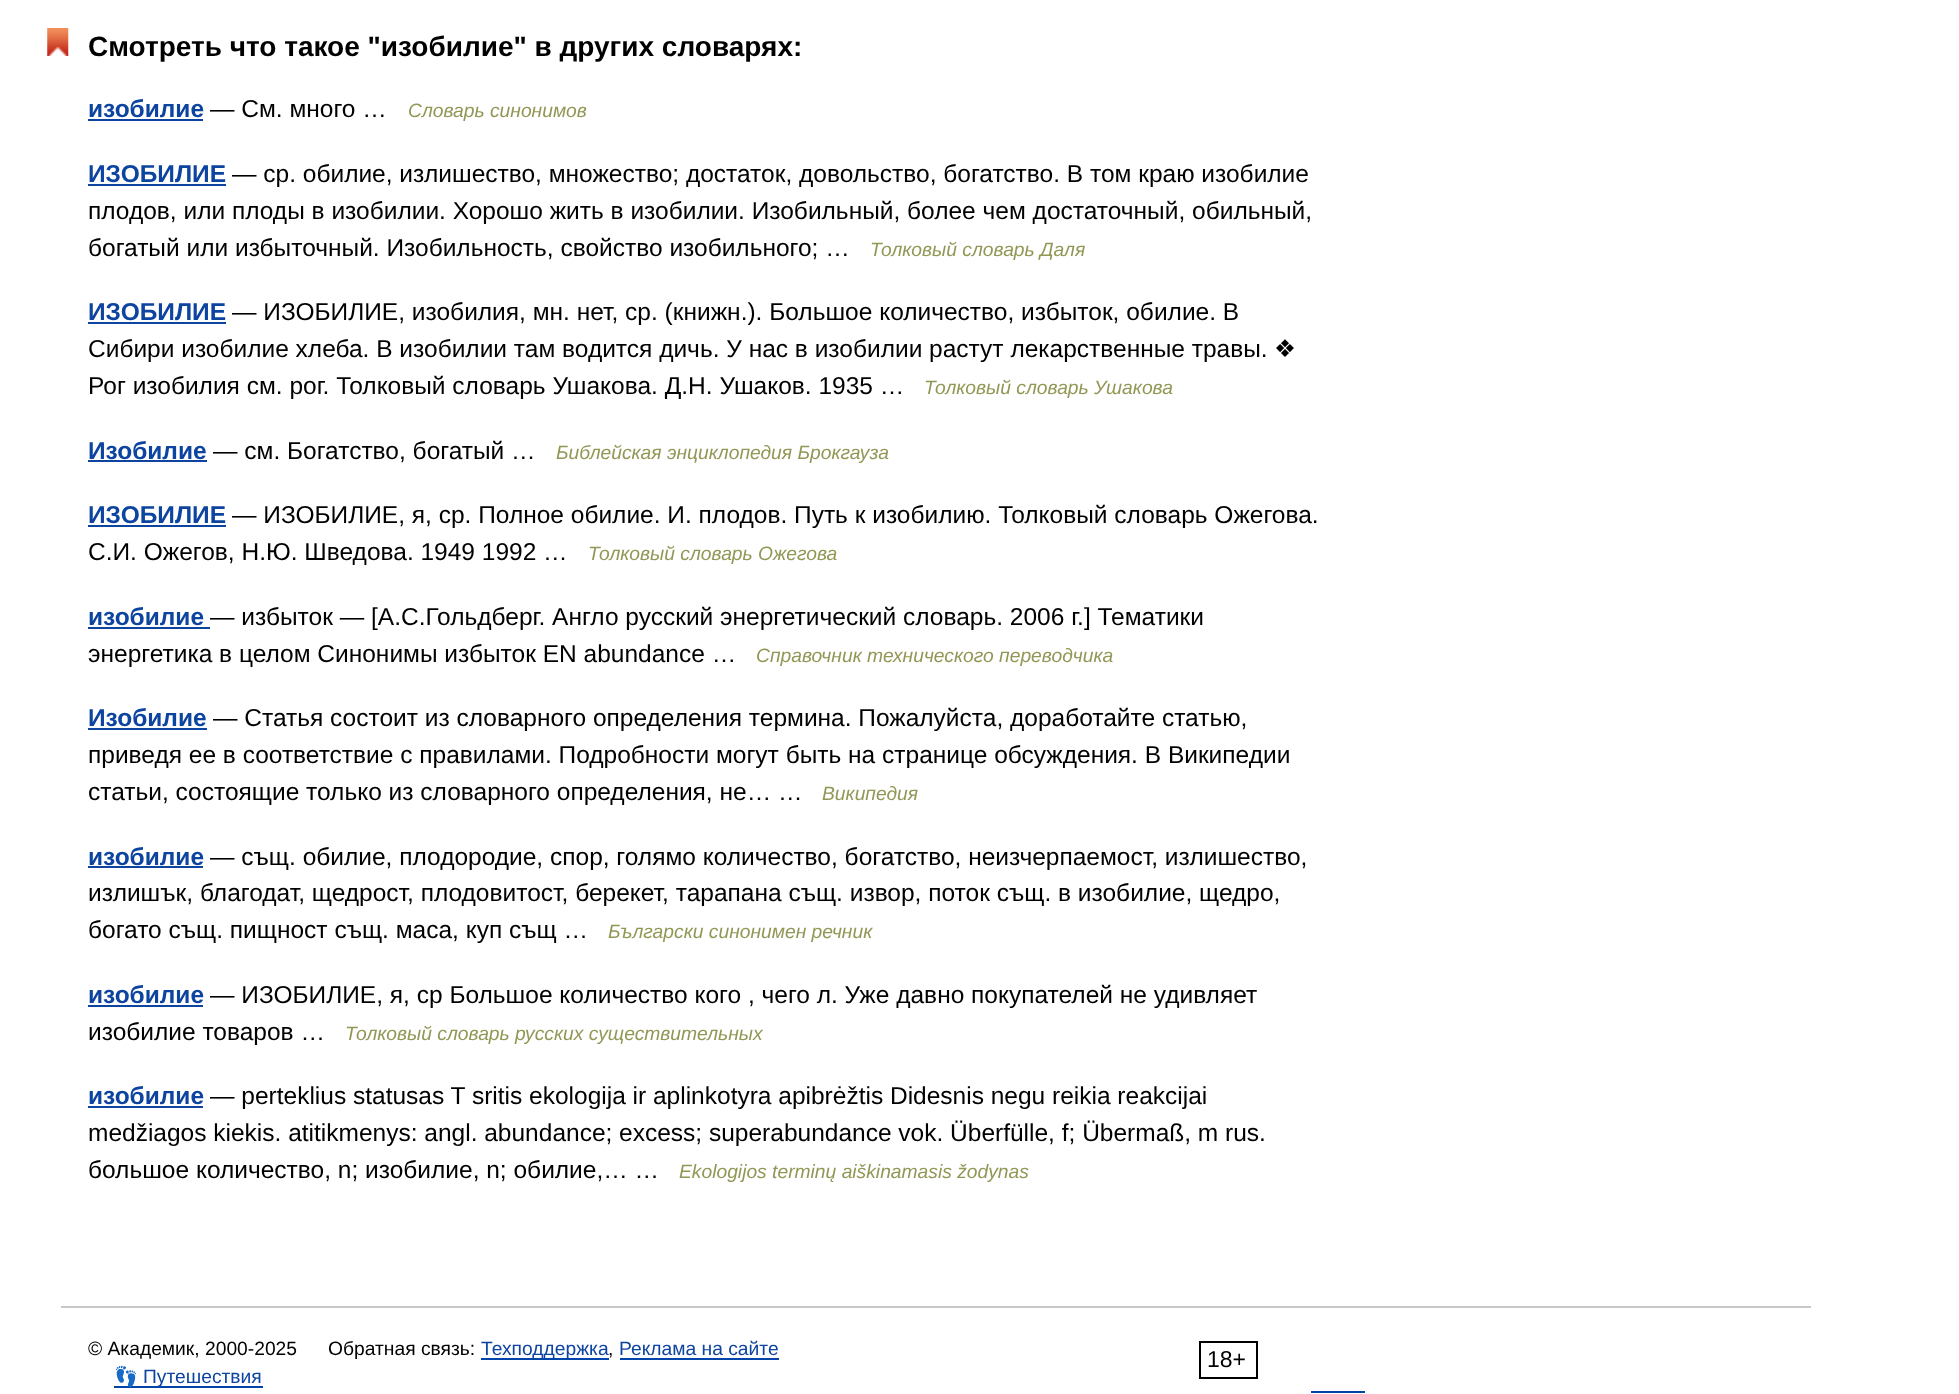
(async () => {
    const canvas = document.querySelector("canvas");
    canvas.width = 1959;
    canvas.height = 1394;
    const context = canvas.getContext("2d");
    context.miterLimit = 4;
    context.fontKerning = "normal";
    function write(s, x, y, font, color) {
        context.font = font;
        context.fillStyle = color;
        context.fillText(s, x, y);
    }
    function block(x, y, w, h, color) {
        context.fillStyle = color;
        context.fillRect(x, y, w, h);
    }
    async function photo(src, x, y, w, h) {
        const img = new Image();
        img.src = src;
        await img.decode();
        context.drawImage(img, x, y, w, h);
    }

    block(0, 0, 1959, 1394, "rgb(255, 255, 255)");
    await photo("media/1.png", 47, 28, 22, 28);
    write("Смотреть что такое \"изобилие\" в других словарях:", 88, 56, "bold 28px Liberation Sans", "rgb(0, 0, 0)");
    write("изобилие", 88, 117, "bold 24.5px Liberation Sans", "rgb(13, 68, 160)");
    block(88, 119, 115, 2, "rgb(13, 68, 160)");
    write("— См. много …", 210, 117, "24.5px Liberation Sans", "rgb(0, 0, 0)");
    write("Словарь синонимов", 408, 117, "italic 19.25px Liberation Sans", "rgb(147, 151, 86)");
    write("ИЗОБИЛИЕ", 88, 182, "bold 24.5px Liberation Sans", "rgb(13, 68, 160)");
    block(88, 184, 138, 2, "rgb(13, 68, 160)");
    write("— ср. обилие, излишество, множество; достаток, довольство, богатство. В том краю изобилие", 232, 182, "24.5px Liberation Sans", "rgb(0, 0, 0)");
    write("плодов, или плоды в изобилии. Хорошо жить в изобилии. Изобильный, более чем достаточный, обильный,", 88, 219, "24.5px Liberation Sans", "rgb(0, 0, 0)");
    write("богатый или избыточный. Изобильность, свойство изобильного; …", 88, 256, "24.5px Liberation Sans", "rgb(0, 0, 0)");
    write("Толковый словарь Даля", 870, 256, "italic 19.25px Liberation Sans", "rgb(147, 151, 86)");
    write("ИЗОБИЛИЕ", 88, 320, "bold 24.5px Liberation Sans", "rgb(13, 68, 160)");
    block(88, 322, 138, 2, "rgb(13, 68, 160)");
    write("— ИЗОБИЛИЕ, изобилия, мн. нет, ср. (книжн.). Большое количество, избыток, обилие. В", 232, 320, "24.5px Liberation Sans", "rgb(0, 0, 0)");
    write("Сибири изобилие хлеба. В изобилии там водится дичь. У нас в изобилии растут лекарственные травы.", 88, 357, "24.5px Liberation Sans", "rgb(0, 0, 0)");
    write("❖", 1274, 357, "24.5px DejaVu Sans", "rgb(0, 0, 0)");
    write("Рог изобилия см. рог. Толковый словарь Ушакова. Д.Н. Ушаков. 1935 …", 88, 394, "24.5px Liberation Sans", "rgb(0, 0, 0)");
    write("Толковый словарь Ушакова", 924, 394, "italic 19.25px Liberation Sans", "rgb(147, 151, 86)");
    write("Изобилие", 88, 459, "bold 24.5px Liberation Sans", "rgb(13, 68, 160)");
    block(88, 460, 119, 2, "rgb(13, 68, 160)");
    write("— см. Богатство, богатый …", 213, 459, "24.5px Liberation Sans", "rgb(0, 0, 0)");
    write("Библейская энциклопедия Брокгауза", 556, 459, "italic 19.25px Liberation Sans", "rgb(147, 151, 86)");
    write("ИЗОБИЛИЕ", 88, 523, "bold 24.5px Liberation Sans", "rgb(13, 68, 160)");
    block(88, 525, 138, 2, "rgb(13, 68, 160)");
    write("— ИЗОБИЛИЕ, я, ср. Полное обилие. И. плодов. Путь к изобилию. Толковый словарь Ожегова.", 232, 523, "24.5px Liberation Sans", "rgb(0, 0, 0)");
    write("С.И. Ожегов, Н.Ю. Шведова. 1949 1992 …", 88, 560, "24.5px Liberation Sans", "rgb(0, 0, 0)");
    write("Толковый словарь Ожегова", 588, 560, "italic 19.25px Liberation Sans", "rgb(147, 151, 86)");
    write("изобилие", 88, 625, "bold 24.5px Liberation Sans", "rgb(13, 68, 160)");
    block(88, 627, 122, 2, "rgb(13, 68, 160)");
    write("— избыток — [А.С.Гольдберг. Англо русский энергетический словарь. 2006 г.] Тематики", 210, 625, "24.5px Liberation Sans", "rgb(0, 0, 0)");
    write("энергетика в целом Синонимы избыток EN abundance …", 88, 662, "24.5px Liberation Sans", "rgb(0, 0, 0)");
    write("Справочник технического переводчика", 756, 662, "italic 19.25px Liberation Sans", "rgb(147, 151, 86)");
    write("Изобилие", 88, 726, "bold 24.5px Liberation Sans", "rgb(13, 68, 160)");
    block(88, 728, 119, 2, "rgb(13, 68, 160)");
    write("— Статья состоит из словарного определения термина. Пожалуйста, доработайте статью,", 213, 726, "24.5px Liberation Sans", "rgb(0, 0, 0)");
    write("приведя ее в соответствие с правилами. Подробности могут быть на странице обсуждения. В Википедии", 88, 763, "24.5px Liberation Sans", "rgb(0, 0, 0)");
    write("статьи, состоящие только из словарного определения, не… …", 88, 800, "24.5px Liberation Sans", "rgb(0, 0, 0)");
    write("Википедия", 822, 800, "italic 19.25px Liberation Sans", "rgb(147, 151, 86)");
    write("изобилие", 88, 865, "bold 24.5px Liberation Sans", "rgb(13, 68, 160)");
    block(88, 866, 115, 2, "rgb(13, 68, 160)");
    write("— същ. обилие, плодородие, спор, голямо количество, богатство, неизчерпаемост, излишество,", 210, 865, "24.5px Liberation Sans", "rgb(0, 0, 0)");
    write("излишък, благодат, щедрост, плодовитост, берекет, тарапана същ. извор, поток същ. в изобилие, щедро,", 88, 901, "24.5px Liberation Sans", "rgb(0, 0, 0)");
    write("богато същ. пищност същ. маса, куп същ …", 88, 938, "24.5px Liberation Sans", "rgb(0, 0, 0)");
    write("Български синонимен речник", 608, 938, "italic 19.25px Liberation Sans", "rgb(147, 151, 86)");
    write("изобилие", 88, 1003, "bold 24.5px Liberation Sans", "rgb(13, 68, 160)");
    block(88, 1005, 115, 2, "rgb(13, 68, 160)");
    write("— ИЗОБИЛИЕ, я, ср Большое количество кого , чего л. Уже давно покупателей не удивляет", 210, 1003, "24.5px Liberation Sans", "rgb(0, 0, 0)");
    write("изобилие товаров …", 88, 1040, "24.5px Liberation Sans", "rgb(0, 0, 0)");
    write("Толковый словарь русских существительных", 345, 1040, "italic 19.25px Liberation Sans", "rgb(147, 151, 86)");
    write("изобилие", 88, 1104, "bold 24.5px Liberation Sans", "rgb(13, 68, 160)");
    block(88, 1106, 115, 2, "rgb(13, 68, 160)");
    write("— perteklius statusas T sritis ekologija ir aplinkotyra apibrėžtis Didesnis negu reikia reakcijai", 210, 1104, "24.5px Liberation Sans", "rgb(0, 0, 0)");
    write("medžiagos kiekis. atitikmenys: angl. abundance; excess; superabundance vok. Überfülle, f; Übermaß, m rus.", 88, 1141, "24.5px Liberation Sans", "rgb(0, 0, 0)");
    write("большое количество, n; изобилие, n; обилие,… …", 88, 1178, "24.5px Liberation Sans", "rgb(0, 0, 0)");
    write("Ekologijos terminų aiškinamasis žodynas", 679, 1178, "italic 19.25px Liberation Sans", "rgb(147, 151, 86)");
    block(61, 1306, 1750, 2, "rgb(199, 199, 199)");
    write("© Академик, 2000-2025", 88, 1355, "19.25px Liberation Sans", "rgb(0, 0, 0)");
    write("Обратная связь:", 328, 1355, "19.25px Liberation Sans", "rgb(0, 0, 0)");
    block(481, 1358, 128, 2, "rgb(0, 68, 170)");
    write("Техподдержка", 481, 1355, "19.25px Liberation Sans", "rgb(13, 68, 160)");
    write(",", 608, 1355, "19.25px Liberation Sans", "rgb(0, 0, 0)");
    block(620, 1358, 159, 2, "rgb(0, 68, 170)");
    write("Реклама на сайте", 619, 1355, "19.25px Liberation Sans", "rgb(13, 68, 160)");
    context.strokeStyle = "rgb(0, 0, 0)";
    context.lineWidth = 2;
    context.strokeRect(1200, 1342, 57, 36);
    write("18+", 1207, 1367, "23px Liberation Sans", "rgb(0, 0, 0)");
    block(114, 1386, 149, 2, "rgb(0, 68, 170)");
    write("👣", 114, 1383, "19.25px Noto Color Emoji", "rgb(13, 68, 160)");
    write("Путешествия", 143, 1383, "19.25px Liberation Sans", "rgb(13, 68, 160)");
    block(1311, 1391, 54, 2, "rgb(0, 68, 170)");
})();
